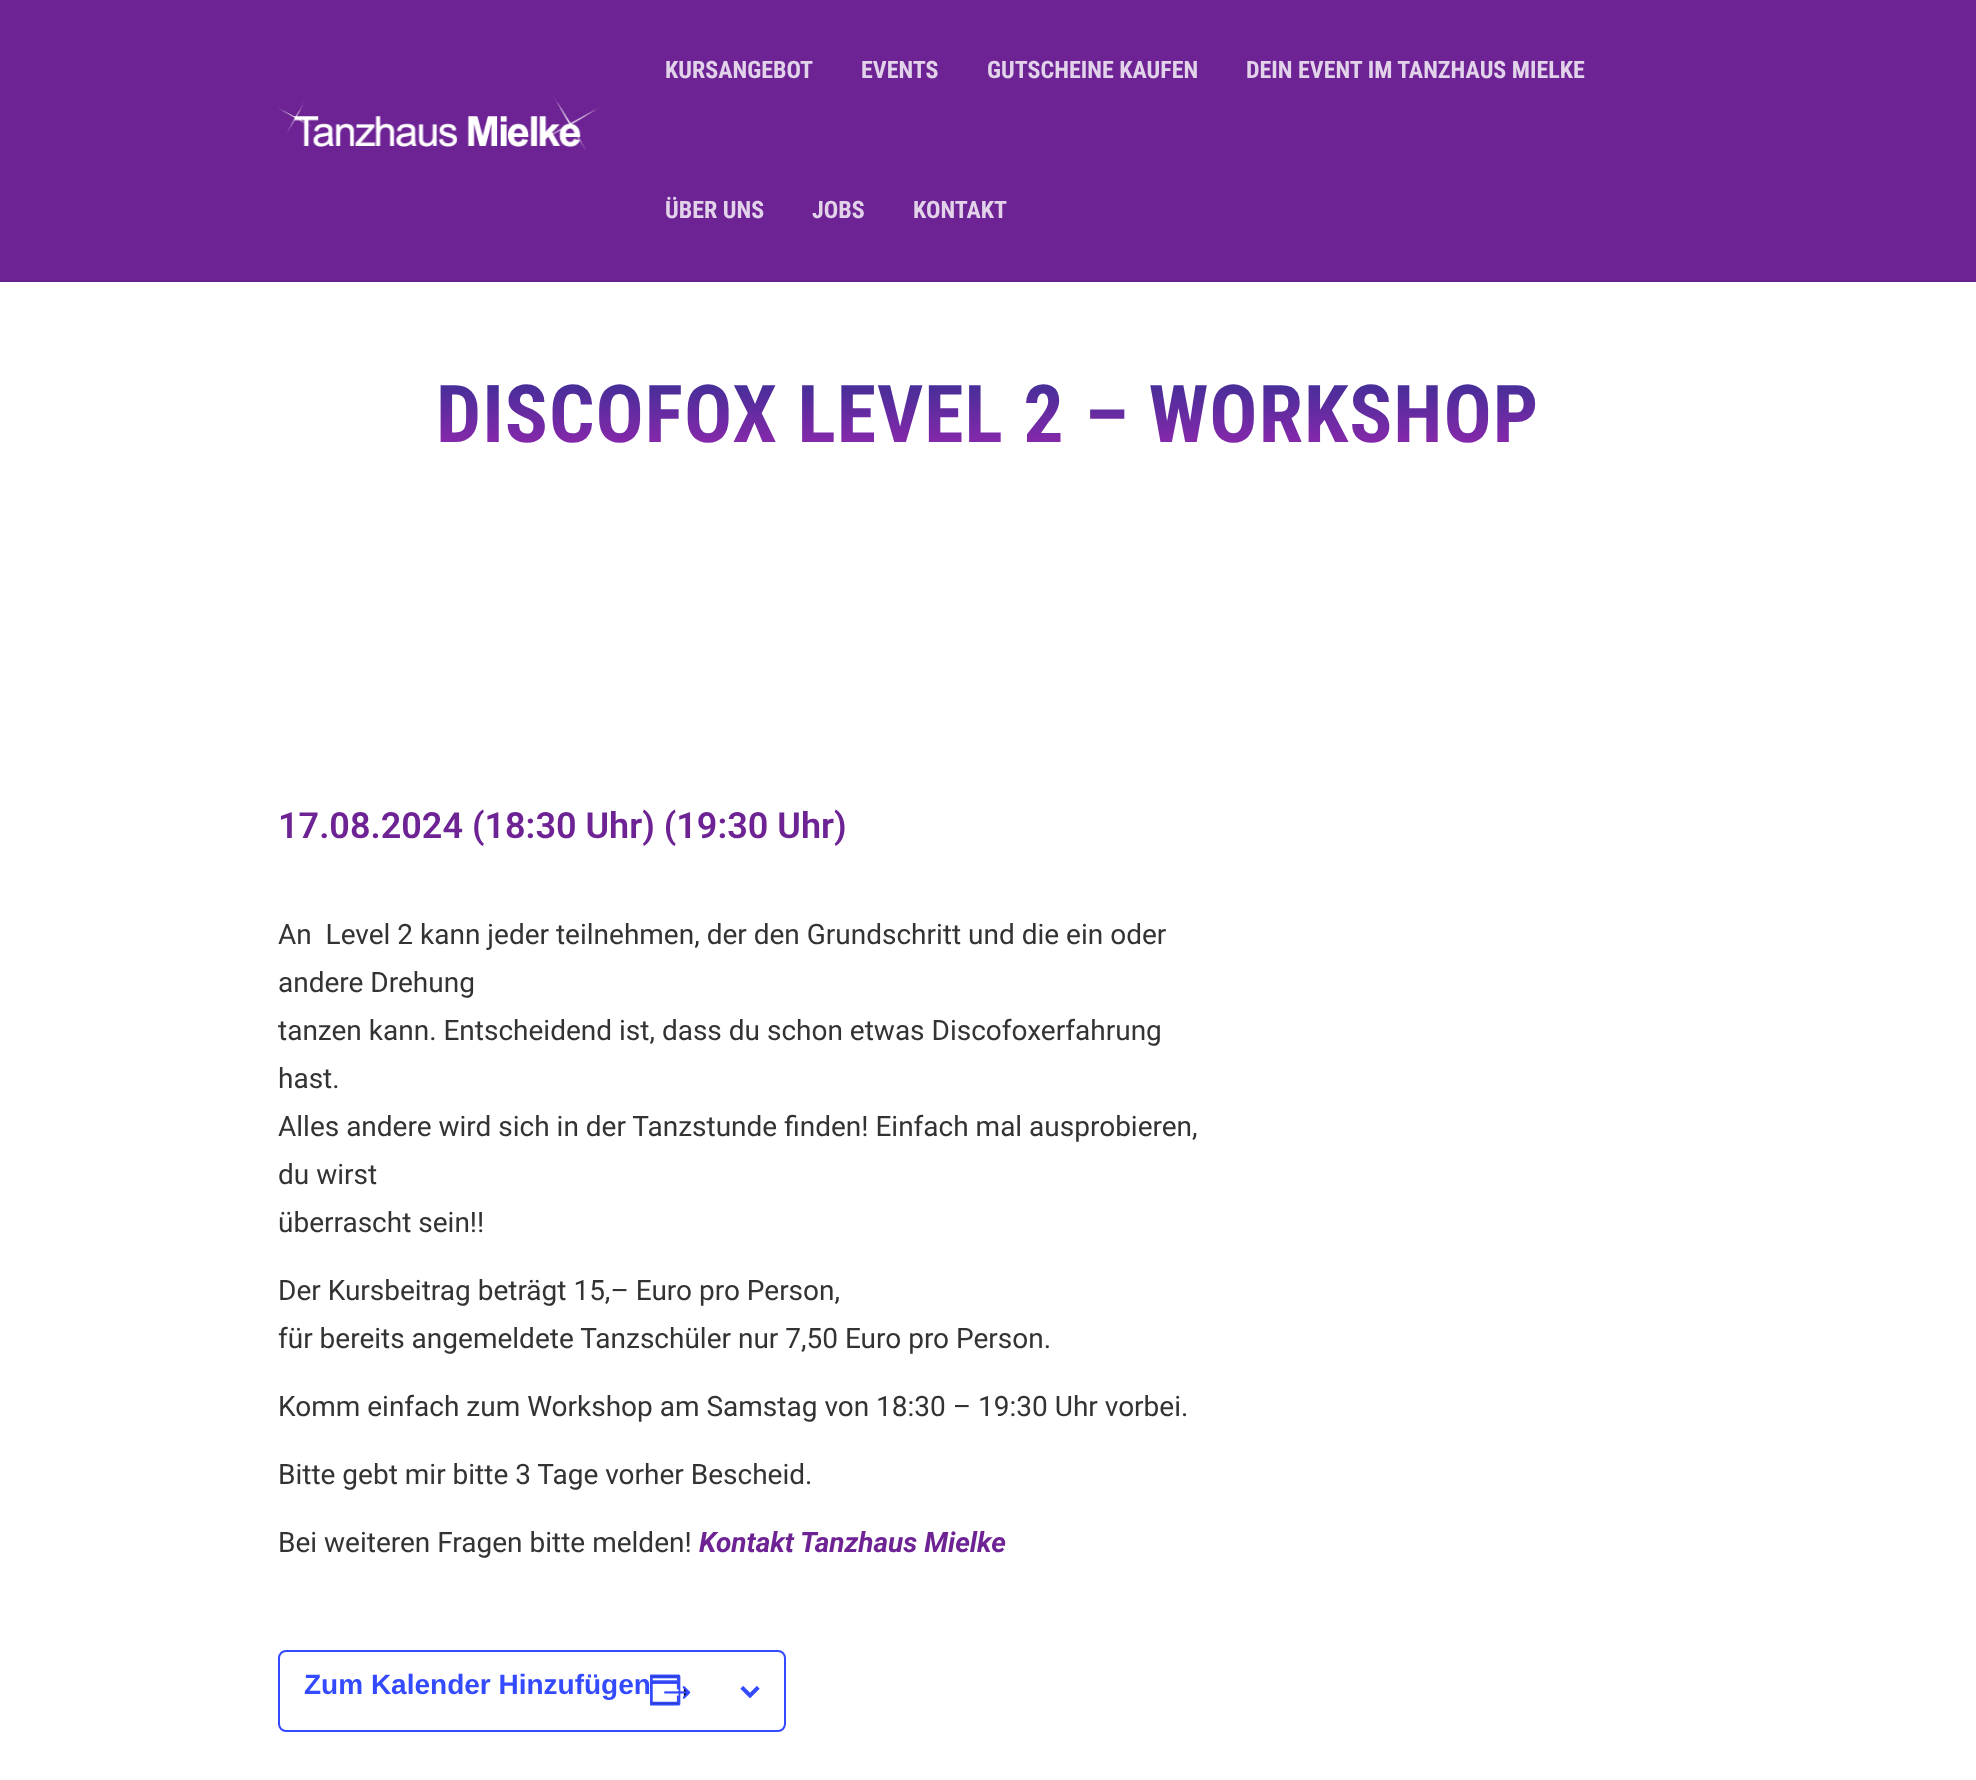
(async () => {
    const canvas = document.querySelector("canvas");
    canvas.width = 1976;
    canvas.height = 1780;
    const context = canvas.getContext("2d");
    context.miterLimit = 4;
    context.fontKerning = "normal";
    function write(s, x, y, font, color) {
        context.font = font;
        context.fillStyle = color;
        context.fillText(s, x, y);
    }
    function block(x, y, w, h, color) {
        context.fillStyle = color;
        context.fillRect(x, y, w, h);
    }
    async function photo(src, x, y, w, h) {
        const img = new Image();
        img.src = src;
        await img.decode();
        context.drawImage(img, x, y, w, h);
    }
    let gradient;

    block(0, 0, 1976, 1780, "rgb(255, 255, 255)");
    block(0, 0, 1976, 280, "rgb(110, 35, 149)");
    block(0, 280, 1976, 2, "rgb(105, 33, 142)");
    await photo("media/1.png", 278, 96, 324, 54);
    write("KURSANGEBOT", 665, 78, "bold 24px Roboto Condensed", "rgb(226, 211, 234)");
    write("EVENTS", 861, 78, "bold 24px Roboto Condensed", "rgb(226, 211, 234)");
    write("GUTSCHEINE KAUFEN", 987, 78, "bold 24px Roboto Condensed", "rgb(226, 211, 234)");
    write("DEIN EVENT IM TANZHAUS MIELKE", 1246, 78, "bold 24px Roboto Condensed", "rgb(226, 211, 234)");
    write("ÜBER UNS", 665, 218, "bold 24px Roboto Condensed", "rgb(226, 211, 234)");
    write("JOBS", 812, 218, "bold 24px Roboto Condensed", "rgb(226, 211, 234)");
    write("KONTAKT", 913, 218, "bold 24px Roboto Condensed", "rgb(226, 211, 234)");
    context.letterSpacing = "1px";
    context.font = "bold 80px Roboto Condensed";
    gradient = context.createLinearGradient(988, 368, 988, 462);
    gradient.addColorStop(0, "rgb(53, 48, 148)");
    gradient.addColorStop(1, "rgb(154, 38, 176)");
    context.fillStyle = gradient;
    context.fillText("DISCOFOX LEVEL 2 – WORKSHOP", 436, 442);
    context.letterSpacing = "0px";
    write("17.08.2024 (18:30 Uhr) (19:30 Uhr)", 278, 838, "600 36px Roboto", "rgb(110, 35, 149)");
    write("An  Level 2 kann jeder teilnehmen, der den Grundschritt und die ein oder", 278, 944, "28px Roboto", "rgb(51, 51, 51)");
    write("andere Drehung", 278, 992, "28px Roboto", "rgb(51, 51, 51)");
    write("tanzen kann. Entscheidend ist, dass du schon etwas Discofoxerfahrung", 278, 1040, "28px Roboto", "rgb(51, 51, 51)");
    write("hast.", 278, 1088, "28px Roboto", "rgb(51, 51, 51)");
    write("Alles andere wird sich in der Tanzstunde finden! Einfach mal ausprobieren,", 278, 1136, "28px Roboto", "rgb(51, 51, 51)");
    write("du wirst", 278, 1184, "28px Roboto", "rgb(51, 51, 51)");
    write("überrascht sein!!", 278, 1232, "28px Roboto", "rgb(51, 51, 51)");
    write("Der Kursbeitrag beträgt 15,– Euro pro Person,", 278, 1300, "28px Roboto", "rgb(51, 51, 51)");
    write("für bereits angemeldete Tanzschüler nur 7,50 Euro pro Person.", 278, 1348, "28px Roboto", "rgb(51, 51, 51)");
    write("Komm einfach zum Workshop am Samstag von 18:30 – 19:30 Uhr vorbei.", 278, 1416, "28px Roboto", "rgb(51, 51, 51)");
    write("Bitte gebt mir bitte 3 Tage vorher Bescheid.", 278, 1484, "28px Roboto", "rgb(51, 51, 51)");
    write("Bei weiteren Fragen bitte melden!", 278, 1552, "28px Roboto", "rgb(51, 51, 51)");
    write("Kontakt Tanzhaus Mielke", 699, 1552, "italic bold 28px Roboto", "rgb(110, 35, 149)");
    context.beginPath();
    context.roundRect(279, 1651, 506, 80, 7);
    context.strokeStyle = "rgb(51, 74, 255)";
    context.lineWidth = 2;
    context.stroke();
    write("Zum Kalender Hinzufügen", 304, 1694, "bold 28px Liberation Sans", "rgb(51, 74, 255)");
    await photo("media/2.png", 650, 1674, 41, 32);
    await photo("media/3.png", 740, 1686, 20, 12);
})();
